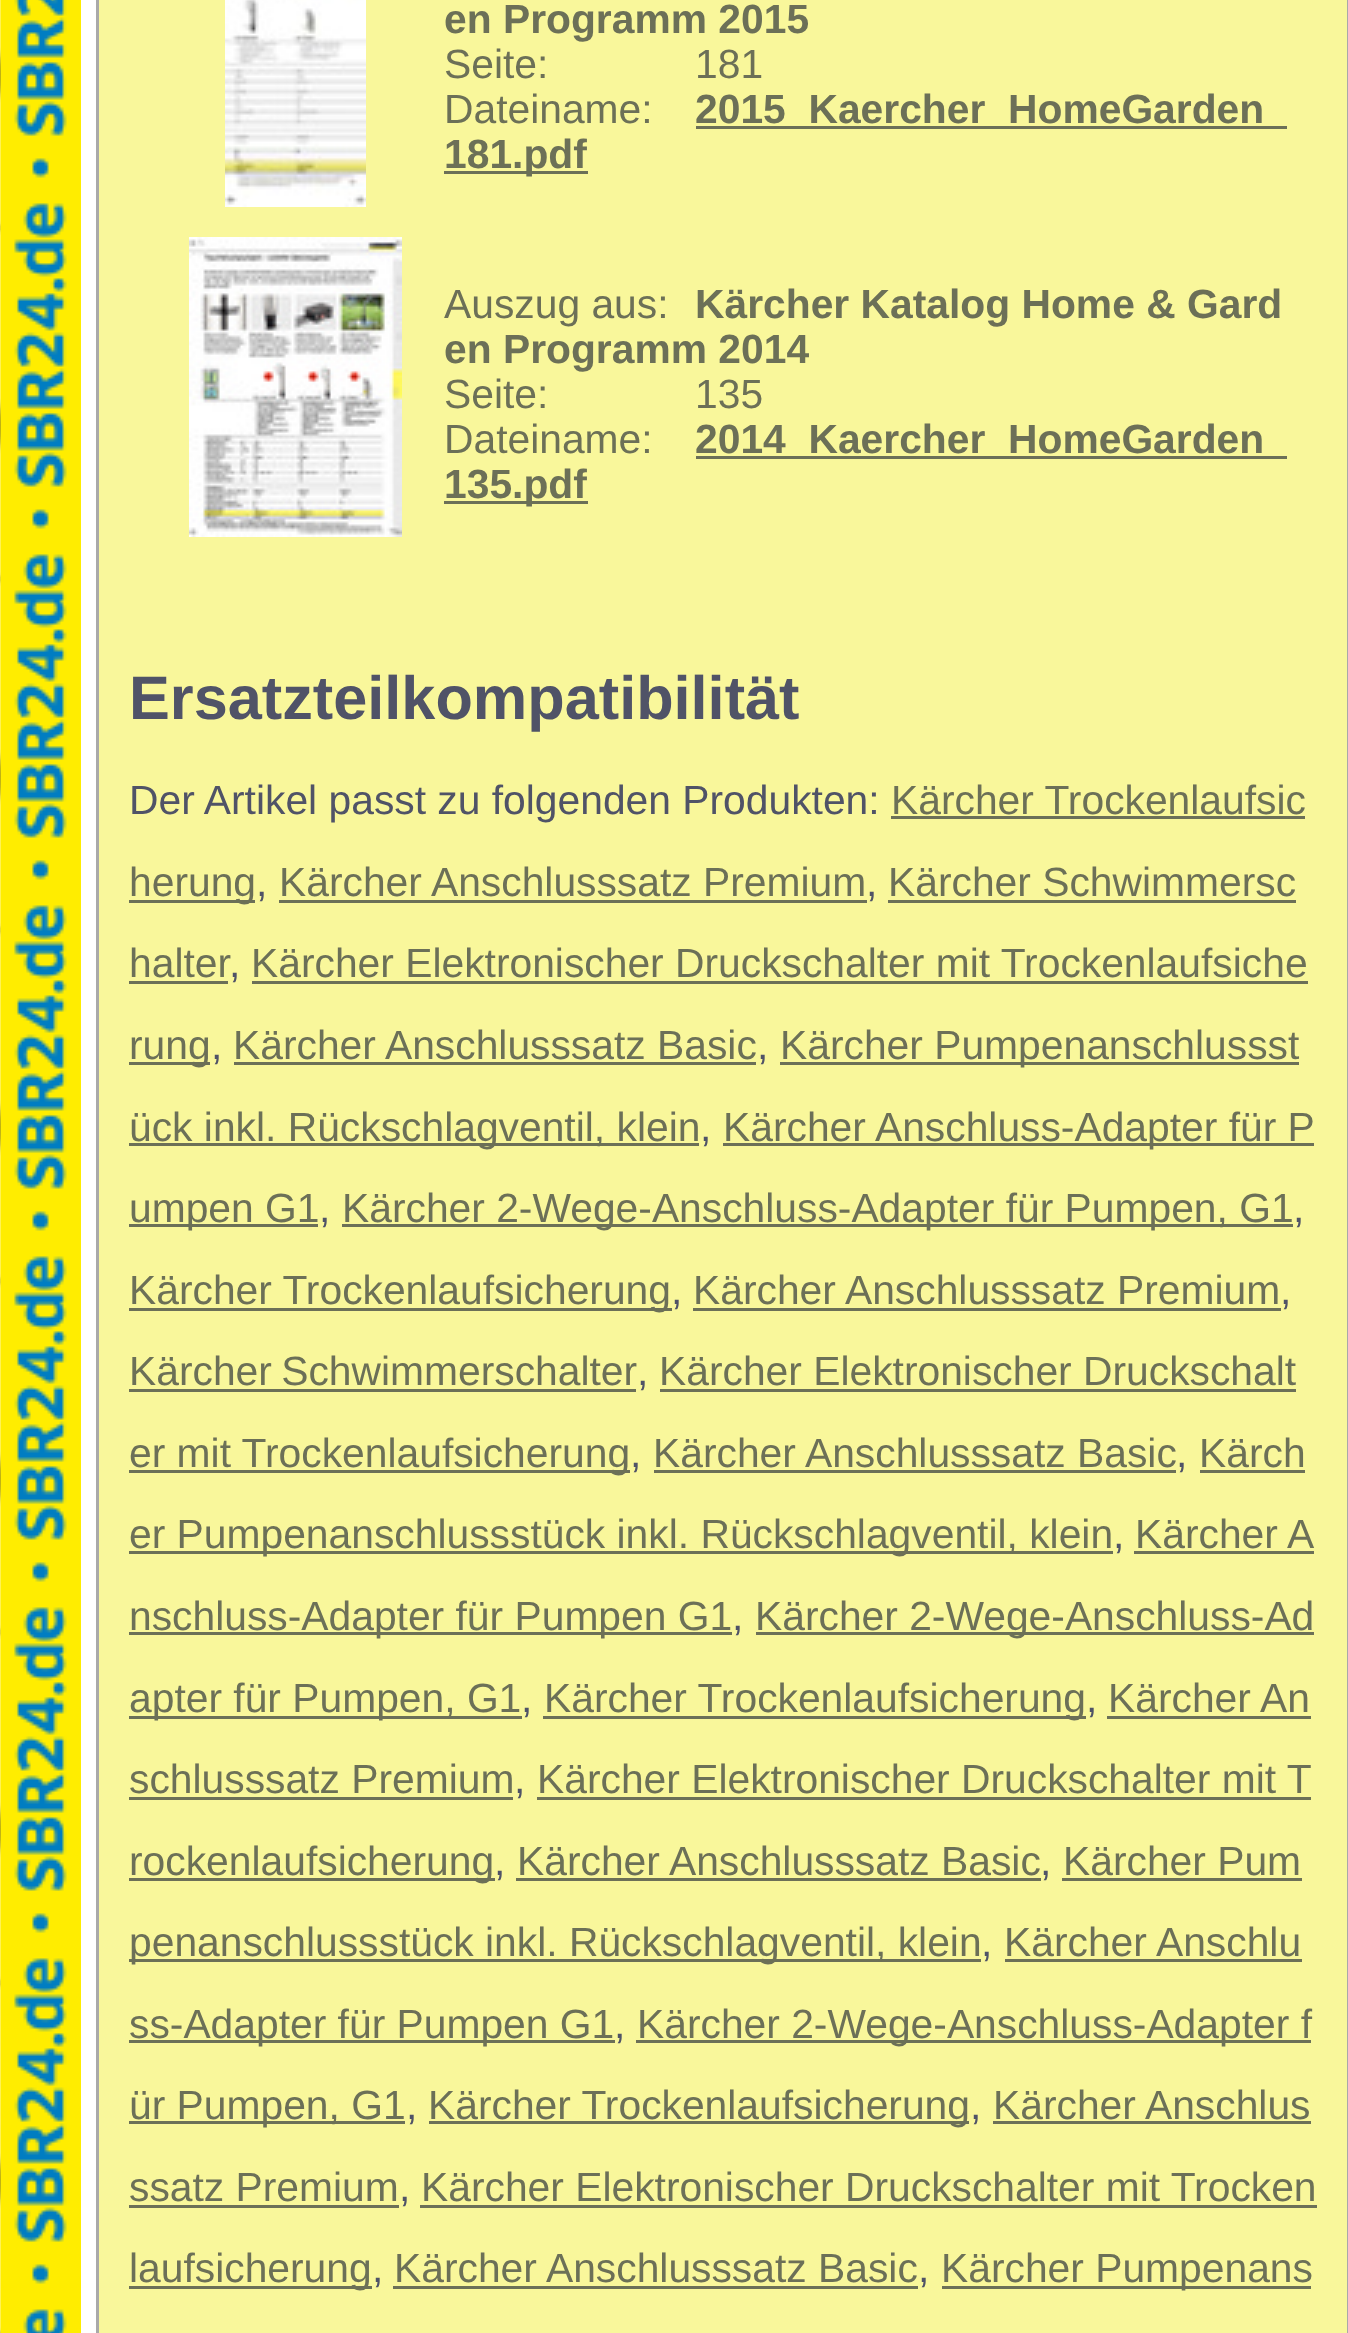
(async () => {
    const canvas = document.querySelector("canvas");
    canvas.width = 1348;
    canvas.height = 2333;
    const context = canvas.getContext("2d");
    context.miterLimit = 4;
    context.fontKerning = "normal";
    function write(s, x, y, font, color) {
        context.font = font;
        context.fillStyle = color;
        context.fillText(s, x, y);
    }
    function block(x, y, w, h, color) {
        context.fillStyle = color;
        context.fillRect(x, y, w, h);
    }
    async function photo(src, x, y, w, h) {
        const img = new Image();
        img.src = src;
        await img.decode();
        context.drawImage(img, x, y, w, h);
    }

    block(0, 0, 1348, 2333, "rgb(255, 255, 255)");
    await photo("media/1.png", 0, 0, 81, 2333);
    context.fillStyle = "rgb(249, 247, 155)";
    context.beginPath();
    context.rect(97.5, -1.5, 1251, 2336);
    context.fill();
    context.strokeStyle = "rgb(169, 169, 169)";
    context.lineWidth = 3;
    context.stroke();
    await photo("media/2.png", 225, 0, 141, 207);
    write("en Programm 2015", 444, 33, "bold 40.8px Liberation Sans", "rgb(108, 112, 87)");
    write("Seite:", 444, 78, "40.8px Liberation Sans", "rgb(108, 112, 87)");
    write("181", 695, 78, "40.8px Liberation Sans", "rgb(108, 112, 87)");
    write("Dateiname:", 444, 123, "40.8px Liberation Sans", "rgb(108, 112, 87)");
    block(696, 126, 591, 3, "rgb(108, 112, 87)");
    write("2015_Kaercher_HomeGarden", 695, 123, "bold 40.8px Liberation Sans", "rgb(108, 112, 87)");
    block(444, 171, 144, 3, "rgb(108, 112, 87)");
    write("181.pdf", 444, 168, "bold 40.8px Liberation Sans", "rgb(108, 112, 87)");
    await photo("media/3.png", 189, 237, 213, 300);
    write("Auszug aus:", 444, 318, "40.8px Liberation Sans", "rgb(108, 112, 87)");
    write("Kärcher Katalog Home & Gard", 695, 318, "bold 40.8px Liberation Sans", "rgb(108, 112, 87)");
    write("en Programm 2014", 444, 363, "bold 40.8px Liberation Sans", "rgb(108, 112, 87)");
    write("Seite:", 444, 408, "40.8px Liberation Sans", "rgb(108, 112, 87)");
    write("135", 695, 408, "40.8px Liberation Sans", "rgb(108, 112, 87)");
    write("Dateiname:", 444, 453, "40.8px Liberation Sans", "rgb(108, 112, 87)");
    block(696, 456, 591, 3, "rgb(108, 112, 87)");
    write("2014_Kaercher_HomeGarden", 695, 453, "bold 40.8px Liberation Sans", "rgb(108, 112, 87)");
    block(444, 501, 144, 3, "rgb(108, 112, 87)");
    write("135.pdf", 444, 498, "bold 40.8px Liberation Sans", "rgb(108, 112, 87)");
    write("Ersatzteilkompatibilität", 129, 719, "bold 61.25px Liberation Sans", "rgb(80, 83, 103)");
    write("Der Artikel passt zu folgenden Produkten:", 129, 814, "40.8px Liberation Sans", "rgb(80, 83, 103)");
    write("Kärcher Trockenlaufsic", 891, 814, "40.8px Liberation Sans", "rgb(108, 112, 87)");
    block(891, 816, 414, 3, "rgb(108, 112, 87)");
    block(129, 900, 126, 3, "rgb(108, 112, 87)");
    write("herung", 129, 896, "40.8px Liberation Sans", "rgb(108, 112, 87)");
    write(",", 256, 896, "40.8px Liberation Sans", "rgb(80, 83, 103)");
    write("Kärcher Anschlusssatz Premium", 279, 896, "40.8px Liberation Sans", "rgb(108, 112, 87)");
    block(279, 900, 588, 3, "rgb(108, 112, 87)");
    write(",", 866, 896, "40.8px Liberation Sans", "rgb(80, 83, 103)");
    write("Kärcher Schwimmersc", 888, 896, "40.8px Liberation Sans", "rgb(108, 112, 87)");
    block(888, 900, 408, 3, "rgb(108, 112, 87)");
    write("halter", 129, 977, "40.8px Liberation Sans", "rgb(108, 112, 87)");
    block(129, 981, 99, 3, "rgb(108, 112, 87)");
    write(",", 229, 977, "40.8px Liberation Sans", "rgb(80, 83, 103)");
    write("Kärcher Elektronischer Druckschalter mit Trockenlaufsiche", 251, 977, "40.8px Liberation Sans", "rgb(108, 112, 87)");
    block(252, 981, 1056, 3, "rgb(108, 112, 87)");
    block(129, 1062, 81, 3, "rgb(108, 112, 87)");
    write("rung", 129, 1059, "40.8px Liberation Sans", "rgb(108, 112, 87)");
    write(",", 211, 1059, "40.8px Liberation Sans", "rgb(80, 83, 103)");
    write("Kärcher Anschlusssatz Basic", 233, 1059, "40.8px Liberation Sans", "rgb(108, 112, 87)");
    block(234, 1062, 522, 3, "rgb(108, 112, 87)");
    write(",", 757, 1059, "40.8px Liberation Sans", "rgb(80, 83, 103)");
    block(780, 1062, 519, 3, "rgb(108, 112, 87)");
    write("Kärcher Pumpenanschlussst", 780, 1059, "40.8px Liberation Sans", "rgb(108, 112, 87)");
    block(129, 1143, 570, 3, "rgb(108, 112, 87)");
    write("ück inkl. Rückschlagventil, klein", 129, 1141, "40.8px Liberation Sans", "rgb(108, 112, 87)");
    write(",", 700, 1141, "40.8px Liberation Sans", "rgb(80, 83, 103)");
    block(723, 1143, 591, 3, "rgb(108, 112, 87)");
    write("Kärcher Anschluss-Adapter für P", 723, 1141, "40.8px Liberation Sans", "rgb(108, 112, 87)");
    block(129, 1224, 189, 3, "rgb(108, 112, 87)");
    write("umpen G1", 129, 1222, "40.8px Liberation Sans", "rgb(108, 112, 87)");
    write(",", 319, 1222, "40.8px Liberation Sans", "rgb(80, 83, 103)");
    block(342, 1224, 951, 3, "rgb(108, 112, 87)");
    write("Kärcher 2-Wege-Anschluss-Adapter für Pumpen, G1", 342, 1222, "40.8px Liberation Sans", "rgb(108, 112, 87)");
    write(",", 1293, 1222, "40.8px Liberation Sans", "rgb(80, 83, 103)");
    block(129, 1308, 543, 3, "rgb(108, 112, 87)");
    write("Kärcher Trockenlaufsicherung", 129, 1304, "40.8px Liberation Sans", "rgb(108, 112, 87)");
    write(",", 671, 1304, "40.8px Liberation Sans", "rgb(80, 83, 103)");
    write("Kärcher Anschlusssatz Premium", 693, 1304, "40.8px Liberation Sans", "rgb(108, 112, 87)");
    block(693, 1308, 588, 3, "rgb(108, 112, 87)");
    write(",", 1280, 1304, "40.8px Liberation Sans", "rgb(80, 83, 103)");
    context.wordSpacing = "-2px";
    write("Kärcher Schwimmerschalter", 129, 1385, "40.8px Liberation Sans", "rgb(108, 112, 87)");
    block(129, 1389, 507, 3, "rgb(108, 112, 87)");
    context.wordSpacing = "0px";
    write(",", 637, 1385, "40.8px Liberation Sans", "rgb(80, 83, 103)");
    write("Kärcher Elektronischer Druckschalt", 659, 1385, "40.8px Liberation Sans", "rgb(108, 112, 87)");
    block(660, 1389, 636, 3, "rgb(108, 112, 87)");
    block(129, 1470, 501, 3, "rgb(108, 112, 87)");
    write("er mit Trockenlaufsicherung", 129, 1467, "40.8px Liberation Sans", "rgb(108, 112, 87)");
    write(",", 630, 1467, "40.8px Liberation Sans", "rgb(80, 83, 103)");
    write("Kärcher Anschlusssatz Basic", 653, 1467, "40.8px Liberation Sans", "rgb(108, 112, 87)");
    block(654, 1470, 522, 3, "rgb(108, 112, 87)");
    write(",", 1176, 1467, "40.8px Liberation Sans", "rgb(80, 83, 103)");
    write("Kärch", 1199, 1467, "40.8px Liberation Sans", "rgb(108, 112, 87)");
    block(1200, 1470, 105, 3, "rgb(108, 112, 87)");
    block(129, 1551, 984, 3, "rgb(108, 112, 87)");
    write("er Pumpenanschlussstück inkl. Rückschlagventil, klein", 129, 1548, "40.8px Liberation Sans", "rgb(108, 112, 87)");
    write(",", 1113, 1548, "40.8px Liberation Sans", "rgb(80, 83, 103)");
    write("Kärcher A", 1135, 1548, "40.8px Liberation Sans", "rgb(108, 112, 87)");
    block(1134, 1551, 180, 3, "rgb(108, 112, 87)");
    block(129, 1632, 603, 3, "rgb(108, 112, 87)");
    write("nschluss-Adapter für Pumpen G1", 129, 1630, "40.8px Liberation Sans", "rgb(108, 112, 87)");
    write(",", 732, 1630, "40.8px Liberation Sans", "rgb(80, 83, 103)");
    block(756, 1632, 558, 3, "rgb(108, 112, 87)");
    write("Kärcher 2-Wege-Anschluss-Ad", 755, 1630, "40.8px Liberation Sans", "rgb(108, 112, 87)");
    block(129, 1716, 393, 3, "rgb(108, 112, 87)");
    write("apter für Pumpen, G1", 129, 1712, "40.8px Liberation Sans", "rgb(108, 112, 87)");
    write(",", 521, 1712, "40.8px Liberation Sans", "rgb(80, 83, 103)");
    block(543, 1716, 543, 3, "rgb(108, 112, 87)");
    write("Kärcher Trockenlaufsicherung", 544, 1712, "40.8px Liberation Sans", "rgb(108, 112, 87)");
    write(",", 1086, 1712, "40.8px Liberation Sans", "rgb(80, 83, 103)");
    write("Kärcher An", 1108, 1712, "40.8px Liberation Sans", "rgb(108, 112, 87)");
    block(1107, 1716, 204, 3, "rgb(108, 112, 87)");
    write("schlusssatz Premium", 129, 1793, "40.8px Liberation Sans", "rgb(108, 112, 87)");
    block(129, 1797, 384, 3, "rgb(108, 112, 87)");
    write(",", 514, 1793, "40.8px Liberation Sans", "rgb(80, 83, 103)");
    write("Kärcher Elektronischer Druckschalter mit T", 537, 1793, "40.8px Liberation Sans", "rgb(108, 112, 87)");
    block(537, 1797, 774, 3, "rgb(108, 112, 87)");
    block(129, 1878, 366, 3, "rgb(108, 112, 87)");
    write("rockenlaufsicherung", 129, 1875, "40.8px Liberation Sans", "rgb(108, 112, 87)");
    write(",", 494, 1875, "40.8px Liberation Sans", "rgb(80, 83, 103)");
    write("Kärcher Anschlusssatz Basic", 517, 1875, "40.8px Liberation Sans", "rgb(108, 112, 87)");
    block(516, 1878, 525, 3, "rgb(108, 112, 87)");
    write(",", 1040, 1875, "40.8px Liberation Sans", "rgb(80, 83, 103)");
    write("Kärcher Pum", 1063, 1875, "40.8px Liberation Sans", "rgb(108, 112, 87)");
    block(1062, 1878, 240, 3, "rgb(108, 112, 87)");
    block(129, 1959, 852, 3, "rgb(108, 112, 87)");
    write("penanschlussstück inkl. Rückschlagventil, klein", 129, 1956, "40.8px Liberation Sans", "rgb(108, 112, 87)");
    write(",", 981, 1956, "40.8px Liberation Sans", "rgb(80, 83, 103)");
    write("Kärcher Anschlu", 1004, 1956, "40.8px Liberation Sans", "rgb(108, 112, 87)");
    block(1005, 1959, 297, 3, "rgb(108, 112, 87)");
    block(129, 2040, 486, 3, "rgb(108, 112, 87)");
    write("ss-Adapter für Pumpen G1", 129, 2038, "40.8px Liberation Sans", "rgb(108, 112, 87)");
    write(",", 614, 2038, "40.8px Liberation Sans", "rgb(80, 83, 103)");
    block(636, 2040, 675, 3, "rgb(108, 112, 87)");
    write("Kärcher 2-Wege-Anschluss-Adapter f", 637, 2038, "40.8px Liberation Sans", "rgb(108, 112, 87)");
    block(129, 2121, 276, 3, "rgb(108, 112, 87)");
    write("ür Pumpen, G1", 129, 2119, "40.8px Liberation Sans", "rgb(108, 112, 87)");
    write(",", 406, 2119, "40.8px Liberation Sans", "rgb(80, 83, 103)");
    block(429, 2121, 540, 3, "rgb(108, 112, 87)");
    write("Kärcher Trockenlaufsicherung", 428, 2119, "40.8px Liberation Sans", "rgb(108, 112, 87)");
    write(",", 970, 2119, "40.8px Liberation Sans", "rgb(80, 83, 103)");
    write("Kärcher Anschlus", 993, 2119, "40.8px Liberation Sans", "rgb(108, 112, 87)");
    block(993, 2121, 318, 3, "rgb(108, 112, 87)");
    write("ssatz Premium", 129, 2201, "40.8px Liberation Sans", "rgb(108, 112, 87)");
    block(129, 2205, 270, 3, "rgb(108, 112, 87)");
    write(",", 399, 2201, "40.8px Liberation Sans", "rgb(80, 83, 103)");
    write("Kärcher Elektronischer Druckschalter mit Trocken", 421, 2201, "40.8px Liberation Sans", "rgb(108, 112, 87)");
    block(420, 2205, 897, 3, "rgb(108, 112, 87)");
    block(129, 2286, 243, 3, "rgb(108, 112, 87)");
    write("laufsicherung", 129, 2282, "40.8px Liberation Sans", "rgb(108, 112, 87)");
    write(",", 372, 2282, "40.8px Liberation Sans", "rgb(80, 83, 103)");
    write("Kärcher Anschlusssatz Basic", 394, 2282, "40.8px Liberation Sans", "rgb(108, 112, 87)");
    block(393, 2286, 525, 3, "rgb(108, 112, 87)");
    write(",", 918, 2282, "40.8px Liberation Sans", "rgb(80, 83, 103)");
    block(942, 2286, 369, 3, "rgb(108, 112, 87)");
    write("Kärcher Pumpenans", 941, 2282, "40.8px Liberation Sans", "rgb(108, 112, 87)");
})();
